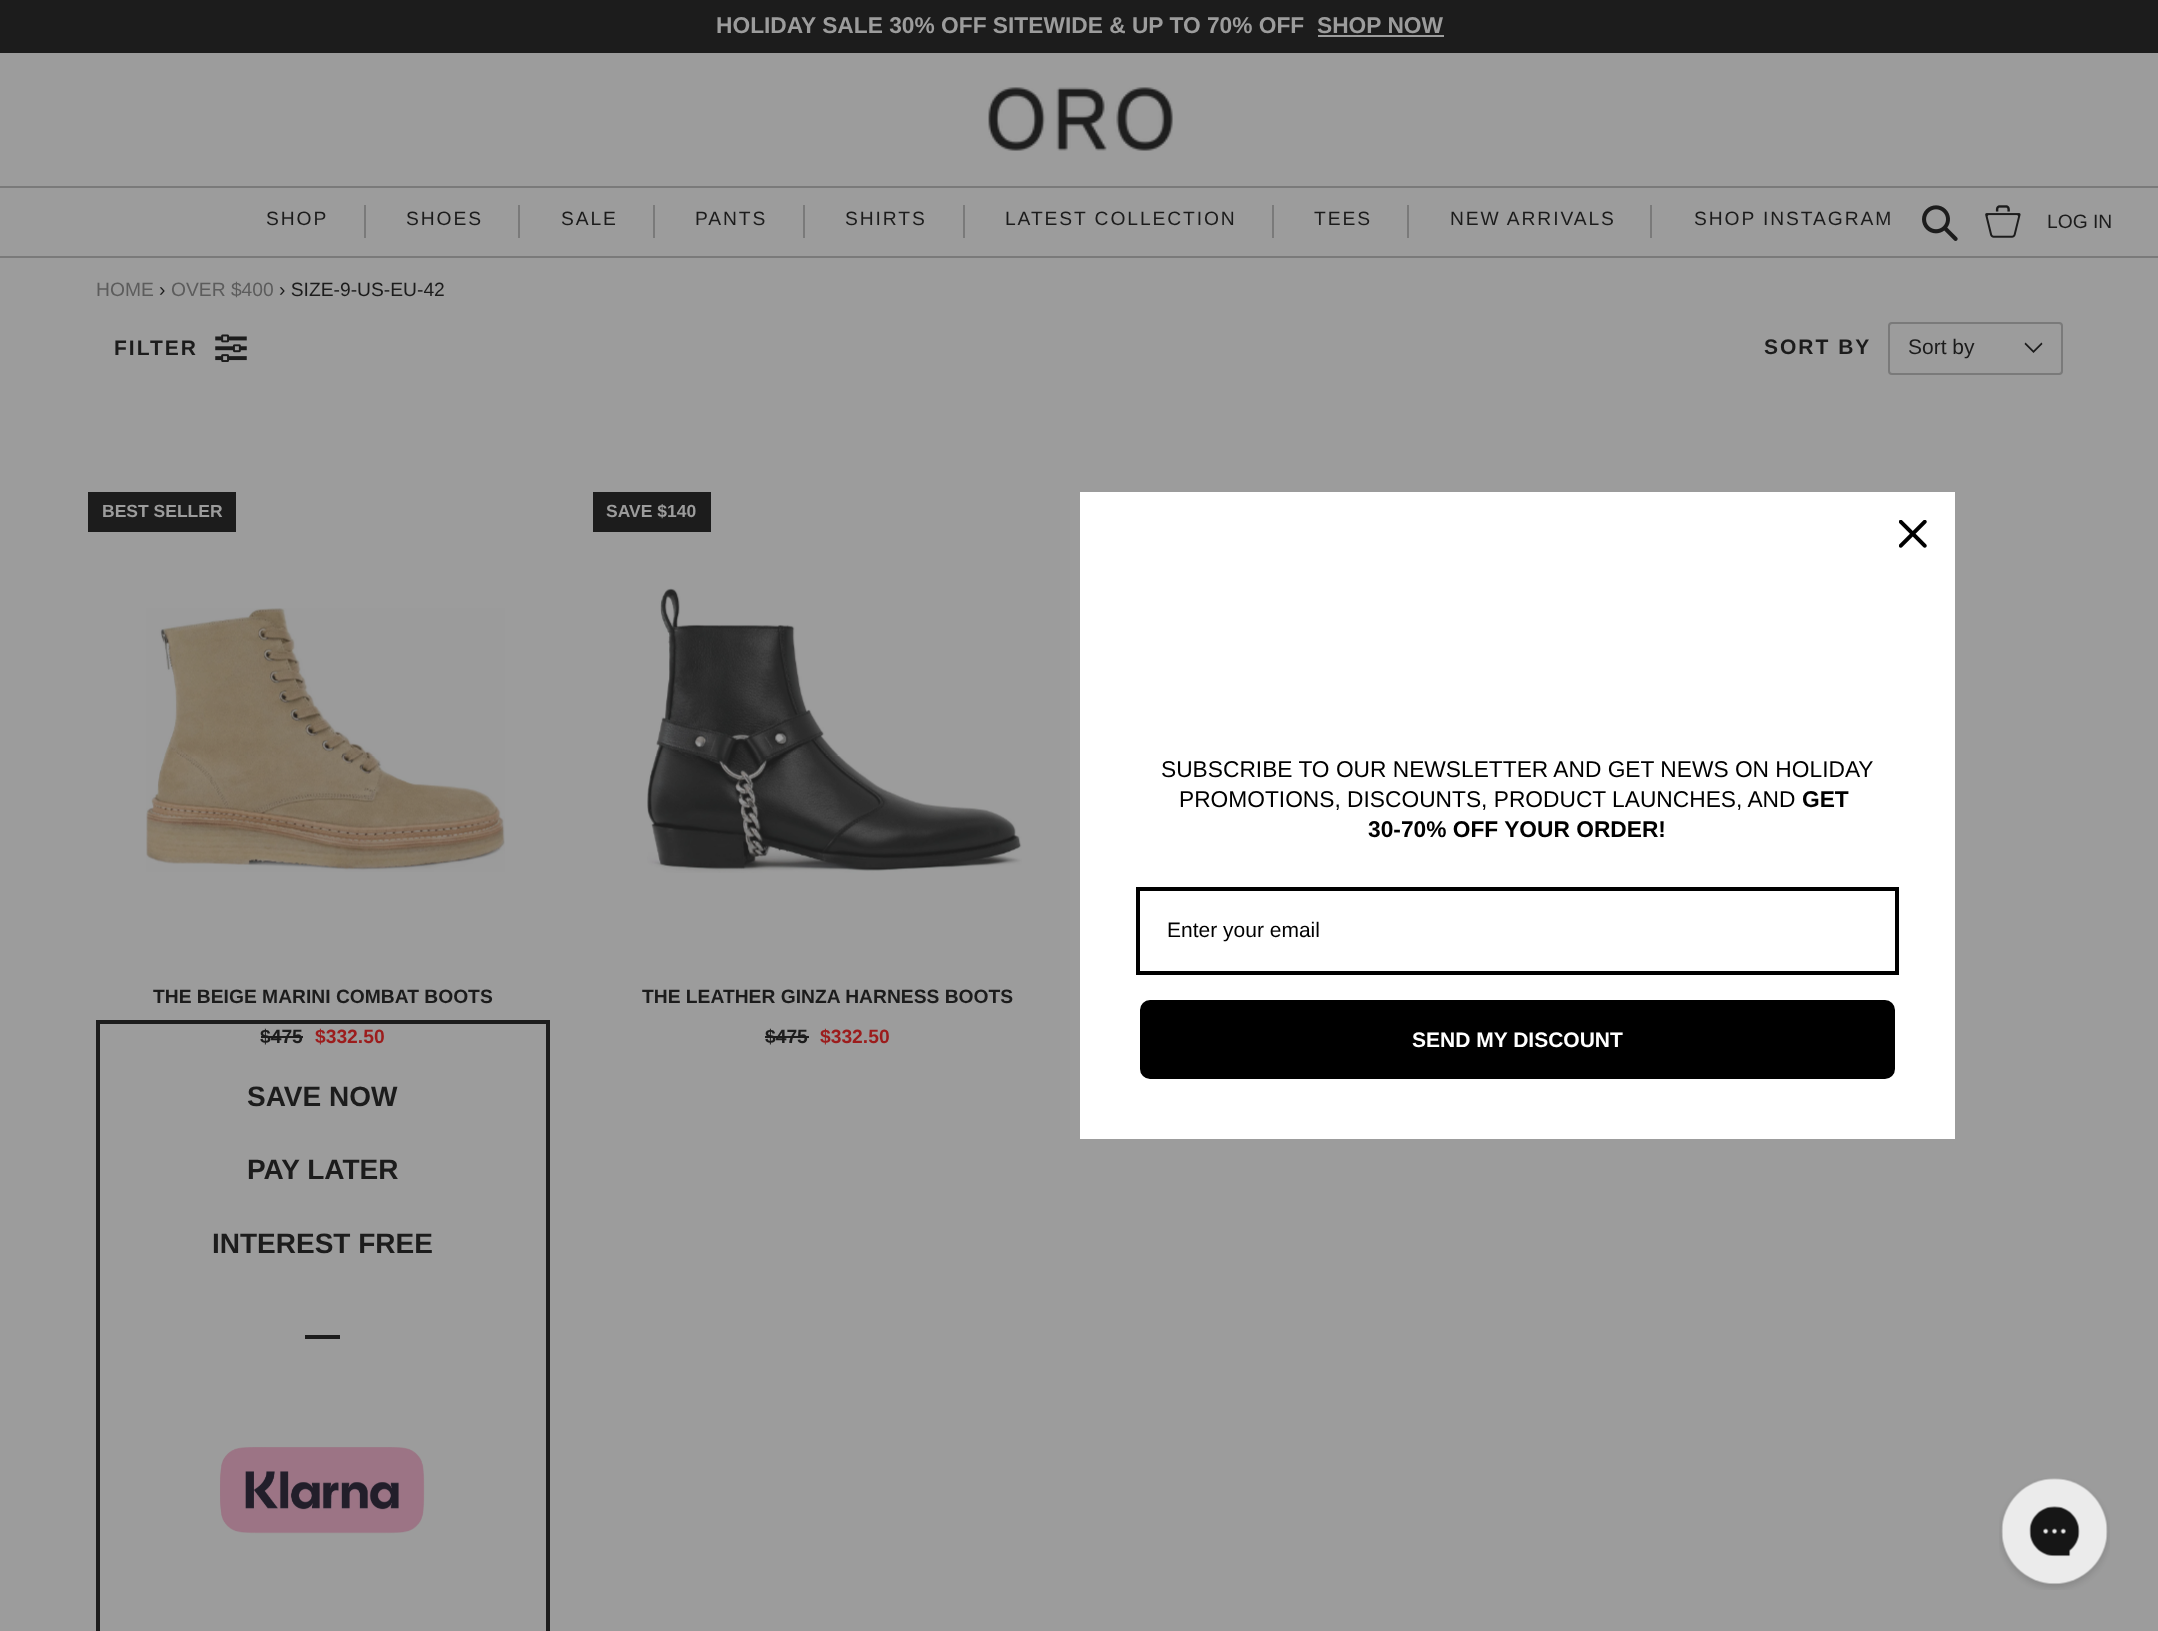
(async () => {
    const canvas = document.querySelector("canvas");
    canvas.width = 2158;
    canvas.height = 1631;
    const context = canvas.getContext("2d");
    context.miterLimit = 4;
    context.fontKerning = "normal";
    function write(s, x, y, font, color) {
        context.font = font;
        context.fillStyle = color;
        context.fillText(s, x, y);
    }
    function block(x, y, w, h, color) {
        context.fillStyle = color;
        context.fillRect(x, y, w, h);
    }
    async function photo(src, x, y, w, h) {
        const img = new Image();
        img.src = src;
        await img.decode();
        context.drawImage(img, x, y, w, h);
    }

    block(0, 0, 2158, 1631, "rgb(156, 156, 156)");
    block(0, 0, 2158, 53, "rgb(28, 28, 28)");
    write("HOLIDAY SALE 30% OFF SITEWIDE & UP TO 70% OFF", 716, 33, "bold 22.75px Liberation Sans", "rgb(156, 156, 156)");
    write("SHOP NOW", 1317, 33, "bold 22.75px Liberation Sans", "rgb(156, 156, 156)");
    block(1318, 35, 126, 2, "rgb(156, 156, 156)");
    await photo("media/1.png", 988, 87, 185, 64);
    block(0, 186, 2158, 2, "rgb(122, 122, 122)");
    block(0, 256, 2158, 2, "rgb(122, 122, 122)");
    block(364, 205, 2, 33, "rgb(122, 122, 122)");
    context.letterSpacing = "1.9px";
    write("SHOP", 266, 225, "19.25px Liberation Sans", "rgb(28, 28, 28)");
    block(518, 205, 2, 33, "rgb(122, 122, 122)");
    write("SHOES", 406, 225, "19.25px Liberation Sans", "rgb(28, 28, 28)");
    block(653, 205, 2, 33, "rgb(122, 122, 122)");
    write("SALE", 561, 225, "19.25px Liberation Sans", "rgb(28, 28, 28)");
    block(803, 205, 2, 33, "rgb(122, 122, 122)");
    write("PANTS", 695, 225, "19.25px Liberation Sans", "rgb(28, 28, 28)");
    block(963, 205, 2, 33, "rgb(122, 122, 122)");
    write("SHIRTS", 845, 225, "19.25px Liberation Sans", "rgb(28, 28, 28)");
    block(1272, 205, 2, 33, "rgb(122, 122, 122)");
    write("LATEST COLLECTION", 1005, 225, "19.25px Liberation Sans", "rgb(28, 28, 28)");
    block(1407, 205, 2, 33, "rgb(122, 122, 122)");
    write("TEES", 1314, 225, "19.25px Liberation Sans", "rgb(28, 28, 28)");
    block(1650, 205, 2, 33, "rgb(122, 122, 122)");
    write("NEW ARRIVALS", 1450, 225, "19.25px Liberation Sans", "rgb(28, 28, 28)");
    write("SHOP INSTAGRAM", 1694, 225, "19.25px Liberation Sans", "rgb(28, 28, 28)");
    await photo("media/2.png", 1922, 205, 36, 36);
    await photo("media/3.png", 1985, 205, 36, 33);
    context.letterSpacing = "0px";
    write("LOG IN", 2047, 228, "19.25px Liberation Sans", "rgb(28, 28, 28)");
    write("HOME", 96, 296, "19.25px Liberation Sans", "rgb(92, 92, 92)");
    write("›", 159, 296, "19.25px Liberation Sans", "rgb(28, 28, 28)");
    write("OVER $400", 171, 296, "19.25px Liberation Sans", "rgb(92, 92, 92)");
    write("› SIZE-9-US-EU-42", 279, 296, "19.25px Liberation Sans", "rgb(28, 28, 28)");
    context.letterSpacing = "2px";
    write("FILTER", 114, 355, "bold 21px Liberation Sans", "rgb(28, 28, 28)");
    await photo("media/4.png", 215, 334, 32, 28);
    write("SORT BY", 1764, 354, "bold 21px Liberation Sans", "rgb(28, 28, 28)");
    context.beginPath();
    context.moveTo(2033.5, 353);
    context.lineTo(2024.5, 344);
    context.lineTo(2025.5, 342.5);
    context.lineTo(2033.5, 350.5);
    context.lineTo(2041.5, 342.5);
    context.lineTo(2042.5, 344);
    context.closePath();
    context.fill();
    context.beginPath();
    context.roundRect(1889, 323, 173, 51, 3);
    context.strokeStyle = "rgb(122, 122, 122)";
    context.lineWidth = 2;
    context.stroke();
    context.letterSpacing = "0px";
    write("Sort by", 1908, 354, "21px Liberation Sans", "rgb(28, 28, 28)");
    block(88, 492, 148, 40, "rgb(28, 28, 28)");
    write("BEST SELLER", 102, 517, "bold 17.5px Liberation Sans", "rgb(156, 156, 156)");
    await photo("media/5.png", 146, 608, 359, 264);
    write("THE BEIGE MARINI COMBAT BOOTS", 153, 1003, "bold 19.25px Liberation Sans", "rgb(28, 28, 28)");
    context.strokeStyle = "rgb(28, 28, 28)";
    context.lineWidth = 4;
    context.strokeRect(98, 1022, 450, 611);
    write("$475", 260, 1043, "bold 19.25px Liberation Sans", "rgb(28, 28, 28)");
    block(261, 1036, 42, 2, "rgb(28, 28, 28)");
    write("$332.50", 315, 1043, "bold 19.25px Liberation Sans", "rgb(156, 28, 28)");
    block(593, 492, 118, 40, "rgb(28, 28, 28)");
    write("SAVE $140", 606, 517, "bold 17.5px Liberation Sans", "rgb(156, 156, 156)");
    await photo("media/6.png", 647, 588, 375, 285);
    write("THE LEATHER GINZA HARNESS BOOTS", 642, 1003, "bold 19.25px Liberation Sans", "rgb(28, 28, 28)");
    write("$475", 765, 1043, "bold 19.25px Liberation Sans", "rgb(28, 28, 28)");
    block(765, 1036, 44, 2, "rgb(28, 28, 28)");
    write("$332.50", 820, 1043, "bold 19.25px Liberation Sans", "rgb(156, 28, 28)");
    write("SAVE NOW", 247, 1106, "bold 28px Liberation Sans", "rgb(28, 28, 28)");
    write("PAY LATER", 247, 1179, "bold 28px Liberation Sans", "rgb(28, 28, 28)");
    write("INTEREST FREE", 212, 1253, "bold 28px Liberation Sans", "rgb(28, 28, 28)");
    block(305, 1335, 35, 4, "rgb(28, 28, 28)");
    await photo("media/7.png", 220, 1447, 205, 87);
    block(1080, 492, 875, 647, "rgb(255, 255, 255)");
    await photo("media/8.png", 1899, 520, 28, 28);
    write("SUBSCRIBE TO OUR NEWSLETTER AND GET NEWS ON HOLIDAY", 1161, 777, "22.75px Liberation Sans", "rgb(0, 0, 0)");
    write("PROMOTIONS, DISCOUNTS, PRODUCT LAUNCHES, AND", 1179, 807, "22.75px Liberation Sans", "rgb(0, 0, 0)");
    write("GET", 1802, 807, "bold 22.75px Liberation Sans", "rgb(0, 0, 0)");
    write("30-70% OFF YOUR ORDER!", 1368, 837, "bold 22.75px Liberation Sans", "rgb(0, 0, 0)");
    context.strokeStyle = "rgb(0, 0, 0)";
    context.strokeRect(1138, 889, 759, 84);
    write("Enter your email", 1167, 937, "21px Liberation Sans", "rgb(0, 0, 0)");
    context.beginPath();
    context.roundRect(1138, 998, 759, 83, 12);
    context.fill();
    context.strokeStyle = "rgb(255, 255, 255)";
    context.stroke();
    write("SEND MY DISCOUNT", 1412, 1047, "bold 21px Liberation Sans", "rgb(255, 255, 255)");
    await photo("media/9.png", 1999, 1478, 111, 112);
})();
